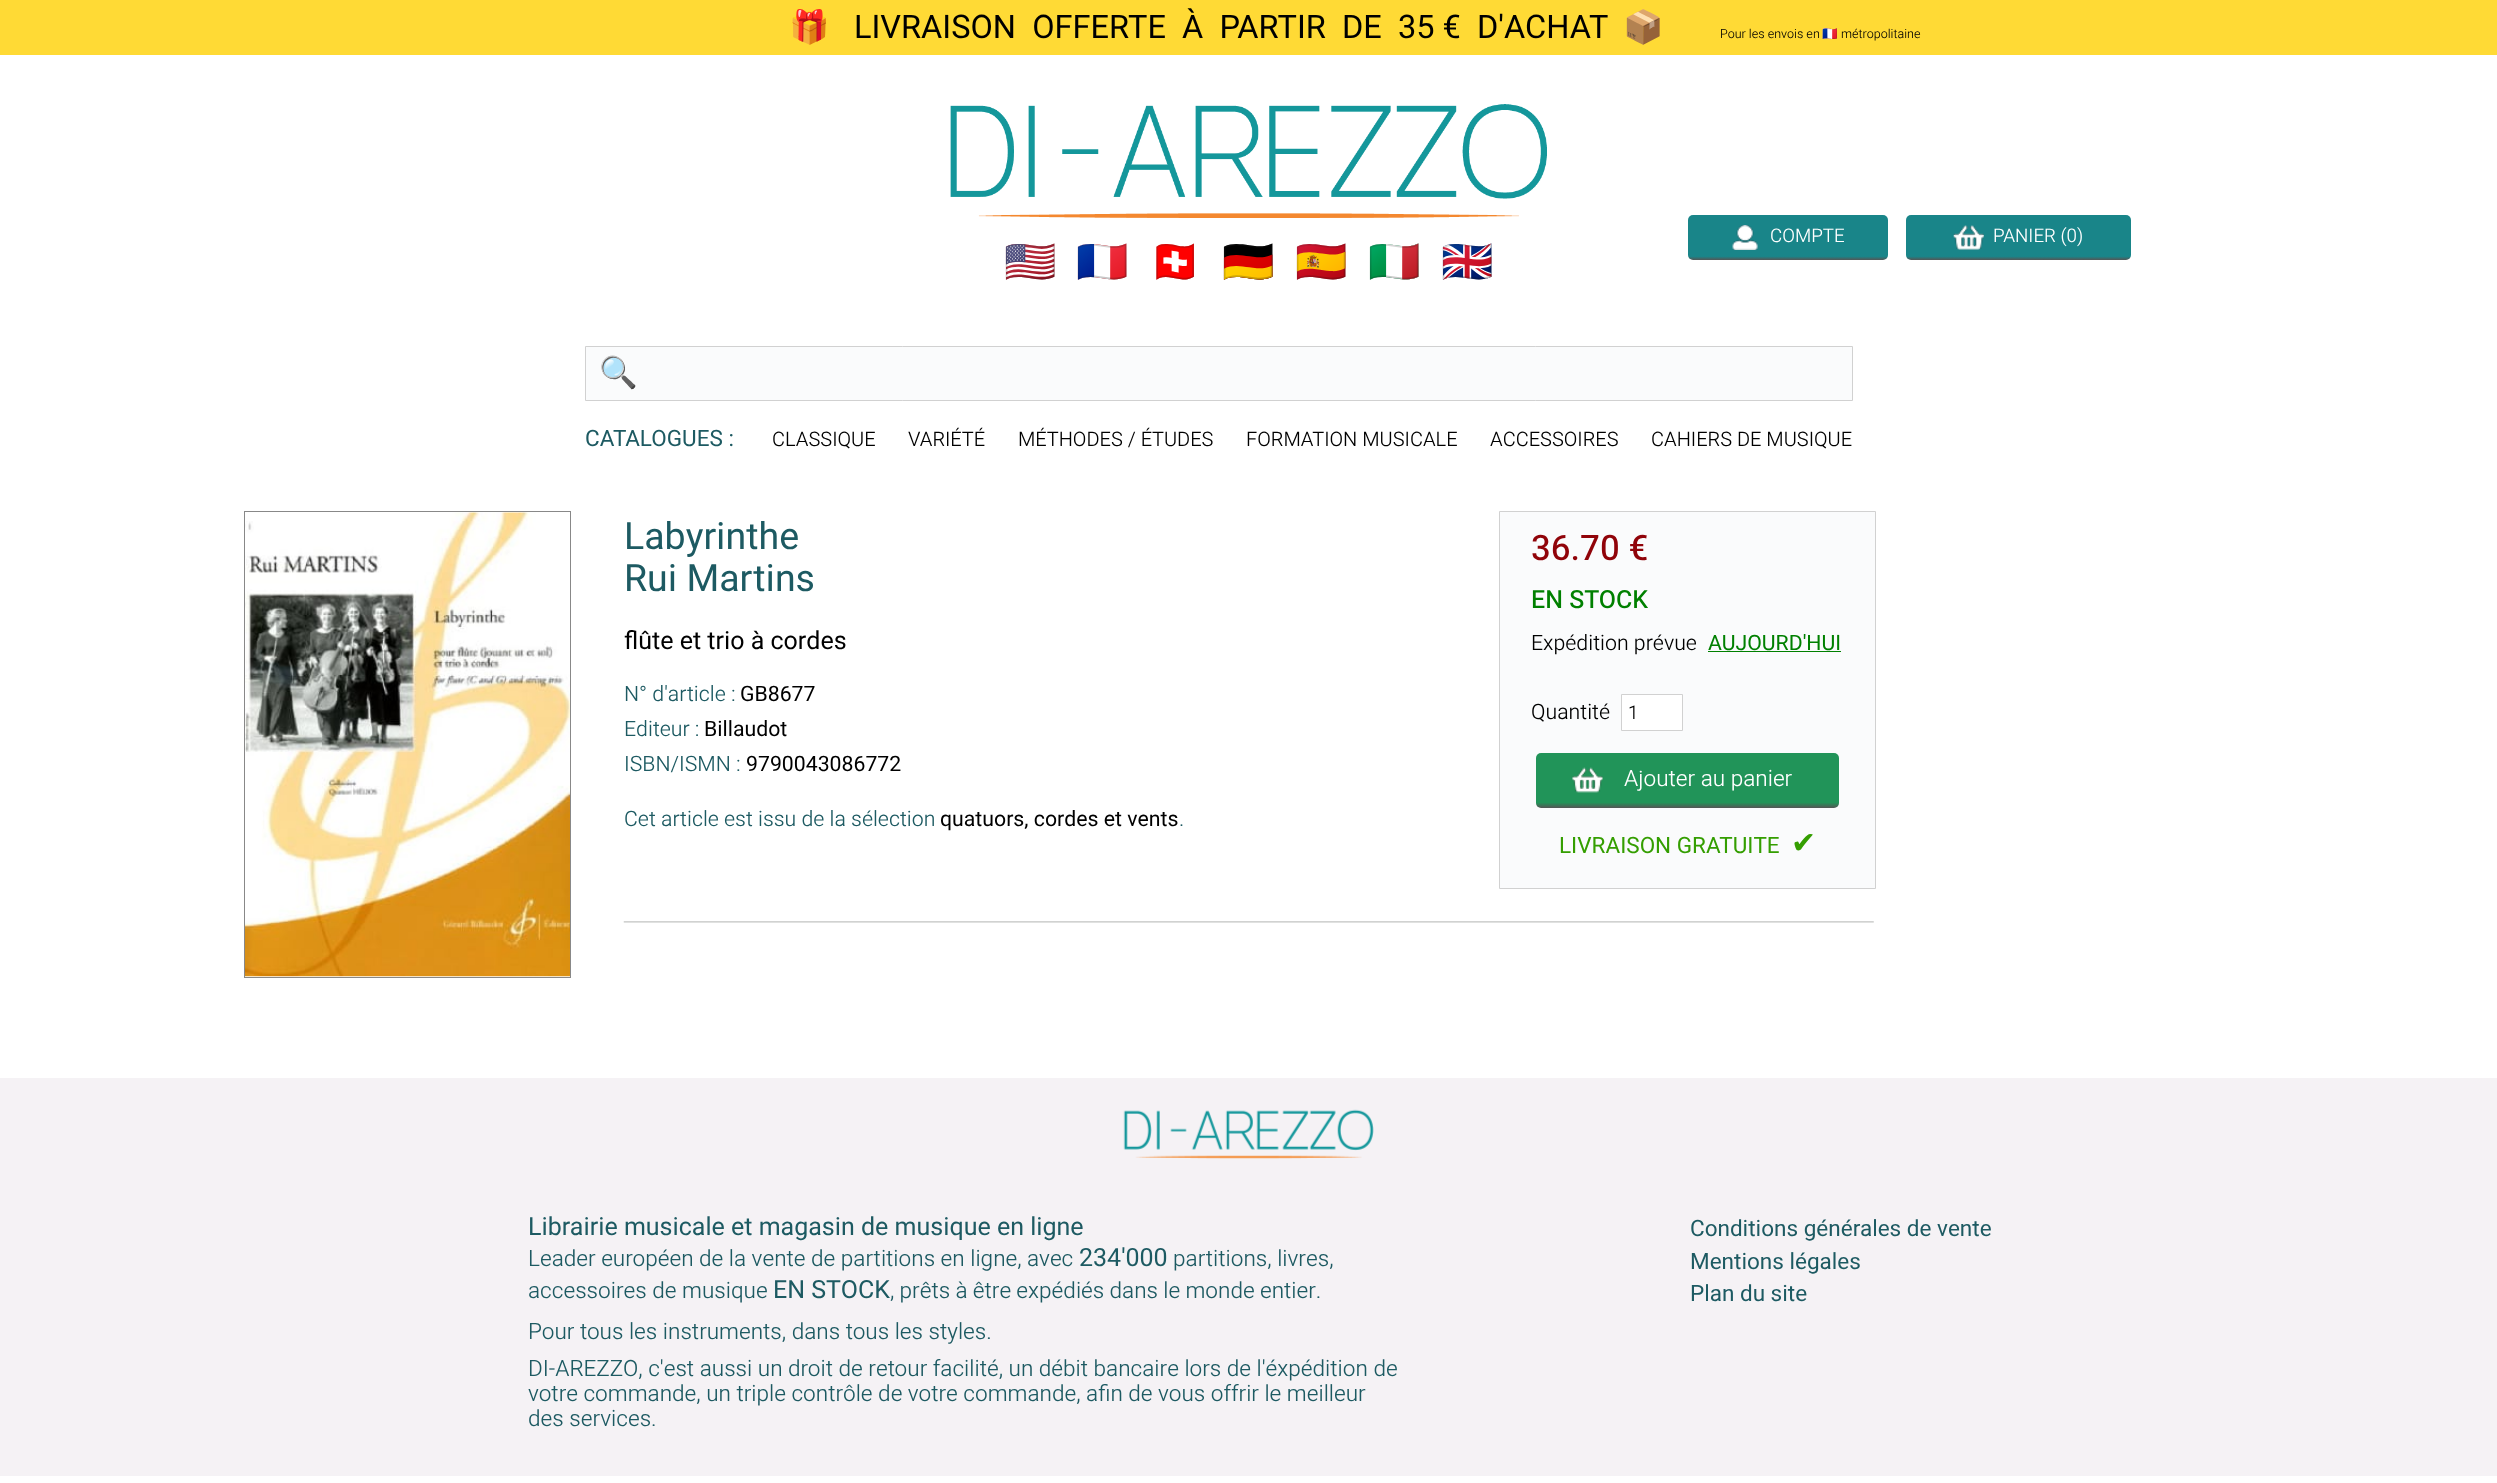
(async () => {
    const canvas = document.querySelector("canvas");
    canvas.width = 2497;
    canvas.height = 1483;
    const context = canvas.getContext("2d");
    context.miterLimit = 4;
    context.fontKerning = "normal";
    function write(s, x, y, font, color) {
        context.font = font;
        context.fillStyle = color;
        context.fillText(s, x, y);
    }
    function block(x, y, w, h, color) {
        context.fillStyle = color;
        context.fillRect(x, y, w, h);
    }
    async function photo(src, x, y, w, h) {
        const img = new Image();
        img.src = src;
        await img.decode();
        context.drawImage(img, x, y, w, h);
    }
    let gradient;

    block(0, 0, 2497, 1483, "rgb(255, 255, 255)");
    block(0, 0, 2497, 55, "rgb(255, 218, 53)");
    write("🎁", 789, 38, "32.5px Noto Color Emoji", "rgb(0, 0, 0)");
    write("LIVRAISON  OFFERTE  À  PARTIR  DE  35 €  D'ACHAT", 854, 38, "32.5px Heebo", "rgb(0, 0, 0)");
    write("📦", 1623, 38, "32.5px Noto Color Emoji", "rgb(0, 0, 0)");
    write("Pour les envois en", 1720, 38, "300 12.5px Heebo", "rgb(0, 0, 0)");
    write("🇫🇷", 1822, 38, "12.5px Noto Color Emoji", "rgb(0, 0, 0)");
    write("métropolitaine", 1841, 38, "300 12.5px Heebo", "rgb(0, 0, 0)");
    await photo("media/1.png", 950, 104, 597, 114);
    gradient = context.createLinearGradient(1788, 215, 1788, 260);
    gradient.addColorStop(0.92, "rgb(25, 133, 137)");
    gradient.addColorStop(1, "rgb(85, 85, 85)");
    context.fillStyle = gradient;
    context.beginPath();
    context.roundRect(1688, 215, 200, 45, 5);
    context.fill();
    await photo("media/2.png", 1732, 225, 26, 25);
    write("COMPTE", 1770, 242, "300 18.75px Heebo", "rgb(255, 255, 255)");
    gradient = context.createLinearGradient(2019, 215, 2019, 260);
    gradient.addColorStop(0.92, "rgb(25, 133, 137)");
    gradient.addColorStop(1, "rgb(85, 85, 85)");
    context.fillStyle = gradient;
    context.beginPath();
    context.roundRect(1906, 215, 225, 45, 5);
    context.fill();
    await photo("media/3.png", 1953, 225, 31, 25);
    write("PANIER (0)", 1993, 242, "300 18.75px Heebo", "rgb(255, 255, 255)");
    write("🇺🇲", 1004, 276, "42px Noto Color Emoji", "rgb(153, 153, 153)");
    write("🇲🇫", 1076, 276, "42px Noto Color Emoji", "rgb(153, 153, 153)");
    write("🇨🇭", 1149, 276, "42px Noto Color Emoji", "rgb(153, 153, 153)");
    write("🇩🇪", 1222, 276, "42px Noto Color Emoji", "rgb(153, 153, 153)");
    write("🇪🇸", 1295, 276, "42px Noto Color Emoji", "rgb(153, 153, 153)");
    write("🇮🇹", 1368, 276, "42px Noto Color Emoji", "rgb(153, 153, 153)");
    write("🇬🇧", 1441, 276, "42px Noto Color Emoji", "rgb(153, 153, 153)");
    context.fillStyle = "rgb(250, 251, 252)";
    context.beginPath();
    context.rect(585.5, 346.5, 1267, 54);
    context.fill();
    context.strokeStyle = "rgb(209, 209, 209)";
    context.stroke();
    context.save();
    context.beginPath();
    context.rect(599, 351, 1250, 47);
    context.clip();
    write("🔍", 599, 383, "31px Noto Color Emoji", "rgb(117, 117, 117)");
    context.restore();
    write("CATALOGUES :", 585, 446, "22.5px Heebo", "rgb(29, 90, 98)");
    write("CLASSIQUE", 772, 446, "300 20px Heebo", "rgb(0, 0, 0)");
    write("VARIÉTÉ", 908, 446, "300 20px Heebo", "rgb(0, 0, 0)");
    write("MÉTHODES / ÉTUDES", 1018, 446, "300 20px Heebo", "rgb(0, 0, 0)");
    write("FORMATION MUSICALE", 1246, 446, "300 20px Heebo", "rgb(0, 0, 0)");
    write("ACCESSOIRES", 1490, 446, "300 20px Heebo", "rgb(0, 0, 0)");
    write("CAHIERS DE MUSIQUE", 1651, 446, "300 20px Heebo", "rgb(0, 0, 0)");
    context.strokeStyle = "rgb(136, 136, 136)";
    context.strokeRect(244.5, 511.5, 326, 466);
    await photo("media/4.png", 245, 512, 325, 465);
    write("Labyrinthe", 624, 549, "37.5px Heebo", "rgb(29, 90, 98)");
    write("Rui Martins", 624, 591, "37.5px Heebo", "rgb(29, 90, 98)");
    write("flûte et trio à cordes", 624, 649, "25px Heebo", "rgb(0, 0, 0)");
    write("N° d'article :", 624, 701, "300 21.25px Heebo", "rgb(29, 90, 98)");
    write("GB8677", 740, 701, "21.25px Heebo", "rgb(0, 0, 0)");
    write("Editeur :", 624, 736, "300 21.25px Heebo", "rgb(29, 90, 98)");
    write("Billaudot", 704, 736, "21.25px Heebo", "rgb(0, 0, 0)");
    write("ISBN/ISMN :", 624, 771, "300 21.25px Heebo", "rgb(29, 90, 98)");
    write("9790043086772", 746, 771, "21.25px Heebo", "rgb(0, 0, 0)");
    write("Cet article est issu de la sélection", 624, 826, "300 21.25px Heebo", "rgb(29, 90, 98)");
    write("quatuors, cordes et vents", 940, 826, "21.25px Heebo", "rgb(0, 0, 0)");
    write(".", 1179, 826, "300 21.25px Heebo", "rgb(29, 90, 98)");
    context.fillStyle = "rgb(250, 251, 252)";
    context.beginPath();
    context.rect(1499.5, 511.5, 376, 377);
    context.fill();
    context.strokeStyle = "rgb(209, 209, 209)";
    context.stroke();
    write("36.70 €", 1531, 560, "500 35px Heebo", "rgb(144, 3, 9)");
    write("EN STOCK", 1531, 608, "500 25px Heebo", "rgb(0, 128, 0)");
    write("Expédition prévue", 1531, 650, "300 21.25px Heebo", "rgb(0, 0, 0)");
    write("AUJOURD'HUI", 1708, 650, "21.25px Heebo", "rgb(0, 128, 0)");
    block(1708, 651, 133, 1, "rgb(0, 128, 0)");
    write("Quantité", 1531, 719, "300 21.25px Heebo", "rgb(0, 0, 0)");
    context.fillStyle = "rgb(255, 255, 255)";
    context.beginPath();
    context.rect(1621.5, 694.5, 61, 36);
    context.fill();
    context.stroke();
    write("1", 1628, 719, "300 18.75px Heebo", "rgb(0, 0, 0)");
    gradient = context.createLinearGradient(1688, 753, 1688, 808);
    gradient.addColorStop(0.9, "rgb(33, 148, 89)");
    gradient.addColorStop(1, "rgb(85, 85, 85)");
    context.fillStyle = gradient;
    context.beginPath();
    context.roundRect(1536, 753, 303, 55, 5);
    context.fill();
    await photo("media/5.png", 1572, 767, 31, 26);
    write("Ajouter au panier", 1624, 786, "300 22.5px Heebo", "rgb(255, 255, 255)");
    write("LIVRAISON GRATUITE", 1559, 853, "22.5px Heebo", "rgb(52, 158, 1)");
    write("✔", 1791, 853, "30px DejaVu Sans", "rgb(52, 158, 1)");
    await photo("media/6.png", 623, 921, 1251, 2);
    block(0, 1078, 2497, 398, "rgb(245, 242, 245)");
    await photo("media/7.png", 1123, 1109, 251, 50);
    write("Librairie musicale et magasin de musique en ligne", 528, 1235, "25px Heebo", "rgb(29, 90, 98)");
    write("Leader européen de la vente de partitions en ligne, avec", 528, 1266, "300 22.5px Heebo", "rgb(29, 90, 98)");
    write("234'000", 1079, 1266, "25px Heebo", "rgb(29, 90, 98)");
    write("partitions, livres,", 1173, 1266, "300 22.5px Heebo", "rgb(29, 90, 98)");
    write("accessoires de musique", 528, 1298, "300 22.5px Heebo", "rgb(29, 90, 98)");
    write("EN STOCK", 773, 1298, "25px Heebo", "rgb(29, 90, 98)");
    context.wordSpacing = "-0.25px";
    write(", prêts à être expédiés dans le monde entier.", 890, 1298, "300 22.5px Heebo", "rgb(29, 90, 98)");
    context.wordSpacing = "0px";
    write("Pour tous les instruments, dans tous les styles.", 528, 1339, "300 22.5px Heebo", "rgb(29, 90, 98)");
    write("DI-AREZZO, c'est aussi un droit de retour facilité, un débit bancaire lors de l'éxpédition de", 528, 1376, "300 22.5px Heebo", "rgb(29, 90, 98)");
    write("votre commande, un triple contrôle de votre commande, afin de vous offrir le meilleur", 528, 1401, "300 22.5px Heebo", "rgb(29, 90, 98)");
    write("des services.", 528, 1426, "300 22.5px Heebo", "rgb(29, 90, 98)");
    write("Conditions générales de vente", 1690, 1236, "22.5px Heebo", "rgb(29, 90, 98)");
    write("Mentions légales", 1690, 1269, "22.5px Heebo", "rgb(29, 90, 98)");
    write("Plan du site", 1690, 1301, "22.5px Heebo", "rgb(29, 90, 98)");
})();
